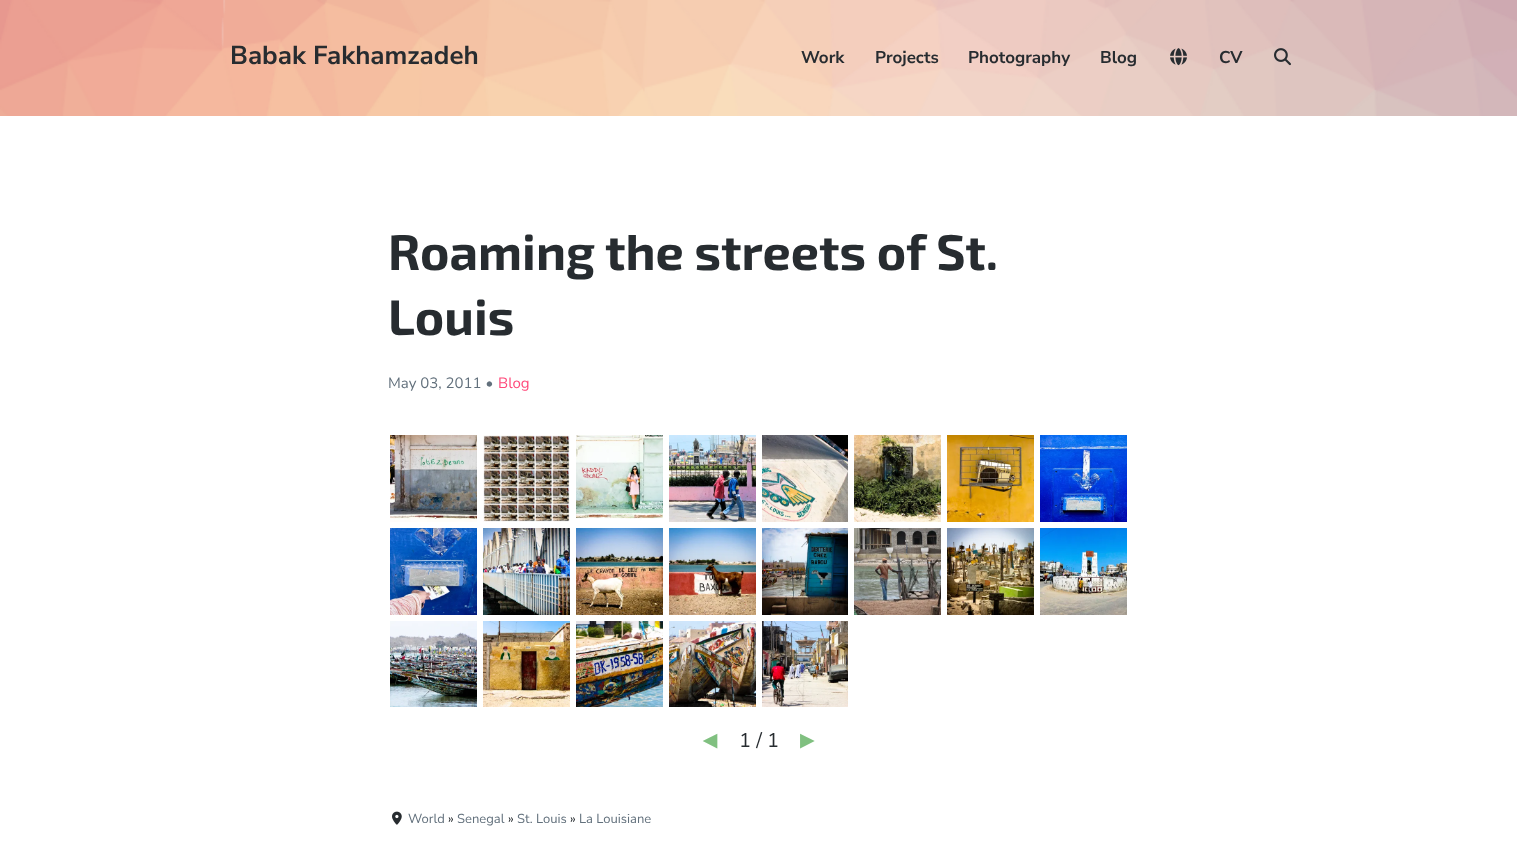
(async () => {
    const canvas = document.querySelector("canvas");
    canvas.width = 1517;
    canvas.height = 846;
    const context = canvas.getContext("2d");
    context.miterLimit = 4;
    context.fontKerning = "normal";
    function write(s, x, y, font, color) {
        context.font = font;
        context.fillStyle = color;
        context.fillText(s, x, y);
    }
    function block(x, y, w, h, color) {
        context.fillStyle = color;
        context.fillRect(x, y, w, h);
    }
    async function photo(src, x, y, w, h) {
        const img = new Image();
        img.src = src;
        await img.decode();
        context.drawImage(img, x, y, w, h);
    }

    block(0, 0, 1517, 846, "rgb(255, 255, 255)");
    block(0, 0, 1517, 116, "rgb(242, 242, 242)");
    await photo("media/1.png", 0, 0, 1517, 116);
    write("Babak Fakhamzadeh", 230, 64, "bold 26px Nunito Sans", "rgb(39, 44, 48)");
    write("Work", 801, 63, "bold 17px Nunito Sans", "rgb(39, 44, 48)");
    write("Projects", 875, 63, "bold 17px Nunito Sans", "rgb(39, 44, 48)");
    write("Photography", 968, 63, "bold 17px Nunito Sans", "rgb(39, 44, 48)");
    write("Blog", 1100, 63, "bold 17px Nunito Sans", "rgb(39, 44, 48)");
    await photo("media/2.png", 1170, 48, 17, 18);
    write("CV", 1219, 63, "bold 17px Nunito Sans", "rgb(39, 44, 48)");
    await photo("media/3.png", 1274, 48, 17, 18);
    write("Roaming the streets of St.", 388, 270, "bold 50px 'Exo 2'", "rgb(39, 44, 48)");
    write("Louis", 388, 335, "bold 50px 'Exo 2'", "rgb(39, 44, 48)");
    write("May 03, 2011 •", 388, 388, "15px Nunito Sans", "rgb(98, 112, 124)");
    write("Blog", 498, 388, "15px Nunito Sans", "rgb(255, 73, 122)");
    await photo("media/4.png", 390, 435, 87, 87);
    await photo("media/5.png", 483, 435, 87, 87);
    await photo("media/6.png", 576, 435, 87, 87);
    await photo("media/7.png", 669, 435, 87, 87);
    await photo("media/8.png", 762, 435, 86, 87);
    await photo("media/9.png", 854, 435, 87, 87);
    await photo("media/10.png", 947, 435, 87, 87);
    await photo("media/11.png", 1040, 435, 87, 87);
    await photo("media/12.png", 390, 528, 87, 87);
    await photo("media/13.png", 483, 528, 87, 87);
    await photo("media/14.png", 576, 528, 87, 87);
    await photo("media/15.png", 669, 528, 87, 87);
    await photo("media/16.png", 762, 528, 86, 87);
    await photo("media/17.png", 854, 528, 87, 87);
    await photo("media/18.png", 947, 528, 87, 87);
    await photo("media/19.png", 1040, 528, 87, 87);
    await photo("media/20.png", 390, 621, 87, 86);
    await photo("media/21.png", 483, 621, 87, 86);
    await photo("media/22.png", 576, 621, 87, 86);
    await photo("media/23.png", 669, 621, 87, 86);
    await photo("media/24.png", 762, 621, 86, 86);
    write("◀", 703, 746, "bold 18px DejaVu Sans", "rgb(128, 192, 128)");
    write("1 / 1", 739, 747, "20px Nunito Sans", "rgb(39, 44, 48)");
    write("▶", 800, 746, "bold 18px DejaVu Sans", "rgb(128, 192, 128)");
    await photo("media/25.png", 392, 811, 10, 14);
    write("World", 408, 823, "13px Nunito Sans", "rgb(98, 112, 124)");
    write("»", 448, 823, "13px Nunito Sans", "rgb(39, 44, 48)");
    write("Senegal", 457, 823, "13px Nunito Sans", "rgb(98, 112, 124)");
    write("»", 508, 823, "13px Nunito Sans", "rgb(39, 44, 48)");
    write("St. Louis", 517, 823, "13px Nunito Sans", "rgb(98, 112, 124)");
    write("»", 570, 823, "13px Nunito Sans", "rgb(39, 44, 48)");
    write("La Louisiane", 579, 823, "13px Nunito Sans", "rgb(98, 112, 124)");
})();
